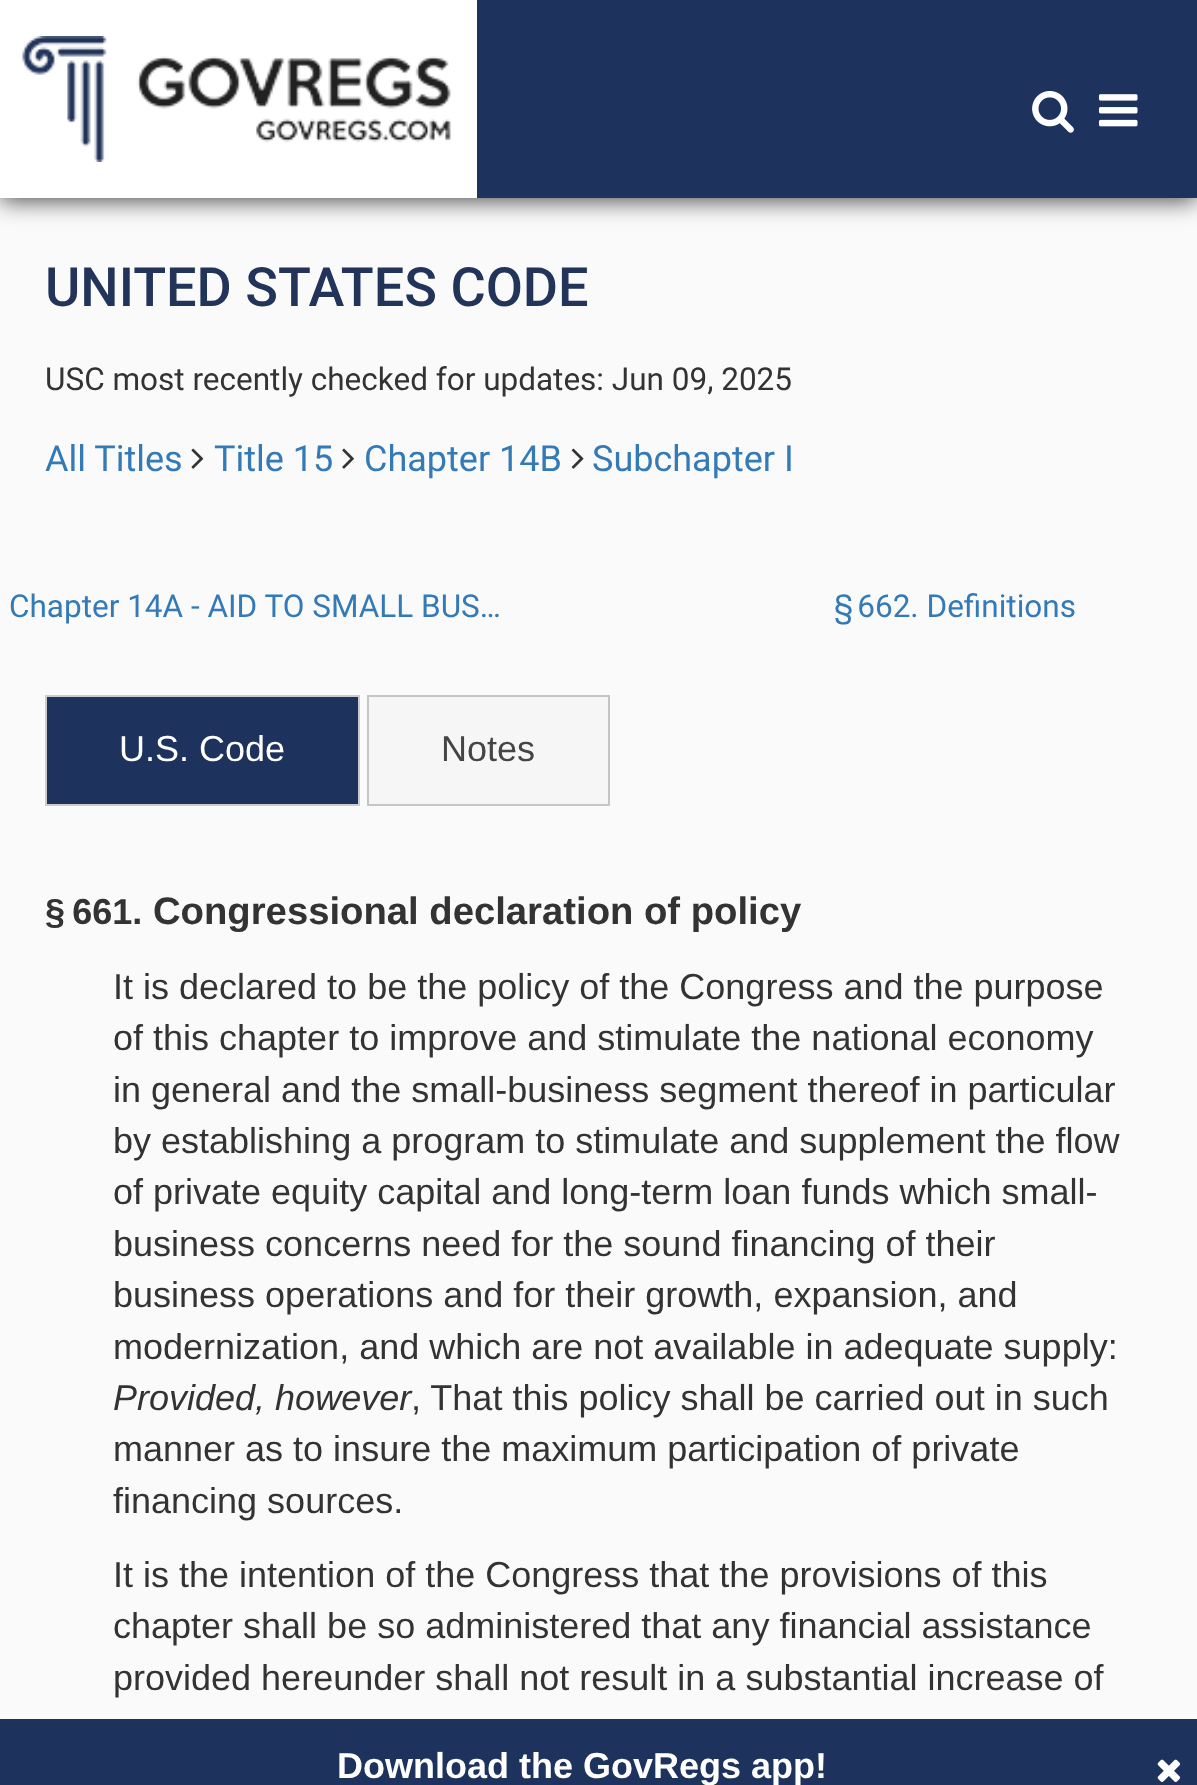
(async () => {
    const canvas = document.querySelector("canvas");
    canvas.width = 1197;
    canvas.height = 1785;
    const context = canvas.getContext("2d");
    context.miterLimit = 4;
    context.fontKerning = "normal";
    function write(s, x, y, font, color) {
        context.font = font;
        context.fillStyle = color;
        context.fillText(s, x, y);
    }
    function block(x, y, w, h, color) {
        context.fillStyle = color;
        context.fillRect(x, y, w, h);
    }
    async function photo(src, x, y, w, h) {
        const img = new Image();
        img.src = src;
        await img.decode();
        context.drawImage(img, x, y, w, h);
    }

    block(0, 0, 1197, 1785, "rgb(250, 250, 250)");
    context.fillStyle = "rgba(0, 0, 0, 0.75)";
    context.filter = "blur(12.5px)";
    context.beginPath();
    context.rect(0, 2, 1197, 198);
    context.fill();
    context.filter = "none";
    block(477, 0, 720, 198, "rgb(29, 50, 92)");
    block(0, 0, 477, 198, "rgb(255, 255, 255)");
    await photo("media/1.png", 22, 36, 429, 126);
    await photo("media/2.png", 1032, 91, 42, 42);
    await photo("media/3.png", 1098, 94, 40, 33);
    write("UNITED STATES CODE", 45, 306, "500 54px Roboto", "rgb(34, 52, 89)");
    write("USC most recently checked for updates: Jun 09, 2025", 45, 390, "31.5px Roboto", "rgb(51, 51, 51)");
    write("All Titles", 45, 471, "36px Roboto", "rgb(51, 122, 183)");
    await photo("media/4.png", 191, 448, 13, 21);
    write("Title 15", 214, 471, "36px Roboto", "rgb(51, 122, 183)");
    await photo("media/5.png", 342, 448, 12, 21);
    write("Chapter 14B", 364, 471, "36px Roboto", "rgb(51, 122, 183)");
    await photo("media/6.png", 571, 448, 13, 21);
    write("Subchapter I", 592, 471, "36px Roboto", "rgb(51, 122, 183)");
    write("Chapter 14A - AID TO SMALL BUS…", 9, 617, "31.5px Roboto", "rgb(51, 122, 183)");
    write("§ 662. Definitions", 834, 617, "31.5px Roboto", "rgb(51, 122, 183)");
    context.fillStyle = "rgb(29, 50, 92)";
    context.beginPath();
    context.rect(46, 696, 313, 109);
    context.fill();
    context.strokeStyle = "rgb(204, 204, 204)";
    context.lineWidth = 2;
    context.stroke();
    write("U.S. Code", 119, 761, "36px Liberation Sans", "rgb(255, 255, 255)");
    context.fillStyle = "rgb(246, 246, 246)";
    context.beginPath();
    context.rect(368, 696, 241, 109);
    context.fill();
    context.strokeStyle = "rgb(197, 197, 197)";
    context.stroke();
    write("Notes", 441, 761, "36px Liberation Sans", "rgb(69, 69, 69)");
    write("§ 661.", 45, 924, "bold 36px Liberation Sans", "rgb(51, 51, 51)");
    write("Congressional declaration of policy", 153, 924, "bold 38.25px Liberation Sans", "rgb(51, 51, 51)");
    write("It is declared to be the policy of the Congress and the purpose", 113, 999, "36px Liberation Sans", "rgb(51, 51, 51)");
    write("of this chapter to improve and stimulate the national economy", 113, 1050, "36px Liberation Sans", "rgb(51, 51, 51)");
    write("in general and the small-business segment thereof in particular", 113, 1102, "36px Liberation Sans", "rgb(51, 51, 51)");
    write("by establishing a program to stimulate and supplement the flow", 113, 1153, "36px Liberation Sans", "rgb(51, 51, 51)");
    write("of private equity capital and long-term loan funds which small-", 113, 1204, "36px Liberation Sans", "rgb(51, 51, 51)");
    write("business concerns need for the sound financing of their", 113, 1256, "36px Liberation Sans", "rgb(51, 51, 51)");
    write("business operations and for their growth, expansion, and", 113, 1307, "36px Liberation Sans", "rgb(51, 51, 51)");
    write("modernization, and which are not available in adequate supply:", 113, 1359, "36px Liberation Sans", "rgb(51, 51, 51)");
    write("Provided, however", 113, 1410, "italic 36px Liberation Sans", "rgb(51, 51, 51)");
    write(", That this policy shall be carried out in such", 411, 1410, "36px Liberation Sans", "rgb(51, 51, 51)");
    write("manner as to insure the maximum participation of private", 113, 1461, "36px Liberation Sans", "rgb(51, 51, 51)");
    write("financing sources.", 113, 1513, "36px Liberation Sans", "rgb(51, 51, 51)");
    write("It is the intention of the Congress that the provisions of this", 113, 1587, "36px Liberation Sans", "rgb(51, 51, 51)");
    write("chapter shall be so administered that any financial assistance", 113, 1638, "36px Liberation Sans", "rgb(51, 51, 51)");
    write("provided hereunder shall not result in a substantial increase of", 113, 1690, "36px Liberation Sans", "rgb(51, 51, 51)");
    block(0, 1719, 1197, 66, "rgb(29, 50, 92)");
    write("Download the GovRegs app!", 337, 1778, "bold 36px Liberation Sans", "rgb(255, 255, 255)");
    await photo("media/7.png", 1157, 1759, 23, 23);
})();
